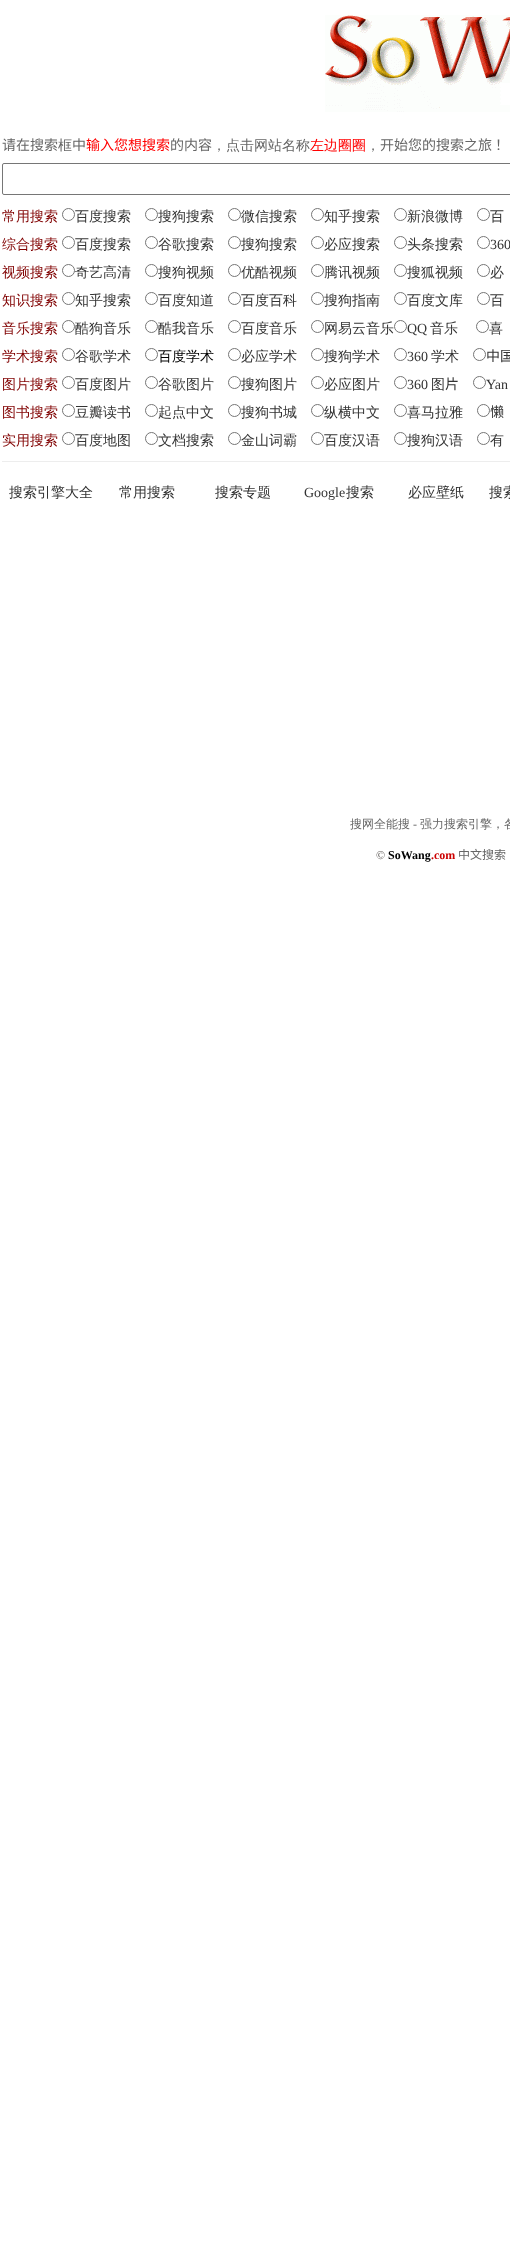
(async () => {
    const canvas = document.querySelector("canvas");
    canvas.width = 510;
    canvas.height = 2268;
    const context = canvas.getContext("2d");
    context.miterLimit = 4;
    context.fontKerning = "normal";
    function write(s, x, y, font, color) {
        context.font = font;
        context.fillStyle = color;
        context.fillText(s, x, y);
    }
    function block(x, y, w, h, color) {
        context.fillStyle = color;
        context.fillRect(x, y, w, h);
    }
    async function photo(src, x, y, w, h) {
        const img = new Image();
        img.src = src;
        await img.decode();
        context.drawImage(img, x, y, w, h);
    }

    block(0, 0, 510, 2268, "rgb(255, 255, 255)");
    await photo("media/1.png", 325, 15, 185, 97);
    write("请在搜索", 2, 150, "14px Noto Sans CJK SC", "rgb(102, 102, 102)");
    write("框", 58, 150, "500 14px WenQuanYi Zen Hei", "rgb(102, 102, 102)");
    write("中", 72, 150, "14px Noto Sans CJK SC", "rgb(102, 102, 102)");
    write("输入您想搜索", 86, 150, "14px Noto Sans CJK SC", "rgb(255, 0, 0)");
    write("的内容", 170, 150, "14px Noto Sans CJK SC", "rgb(102, 102, 102)");
    write("，点击网站名称", 212, 150, "500 14px WenQuanYi Zen Hei", "rgb(102, 102, 102)");
    write("左边圈圈", 310, 150, "500 14px WenQuanYi Zen Hei", "rgb(255, 0, 0)");
    write("，", 366, 150, "500 14px WenQuanYi Zen Hei", "rgb(102, 102, 102)");
    write("开始您的搜索之旅", 380, 150, "14px Noto Sans CJK SC", "rgb(102, 102, 102)");
    write("！", 495, 150, "14px Noto Sans CJK SC", "rgb(102, 102, 102)");
    context.beginPath();
    context.roundRect(2.5, 163.5, 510, 31, 1.5);
    context.strokeStyle = "rgb(118, 118, 118)";
    context.stroke();
    write("常用搜索", 2, 221, "500 14px WenQuanYi Zen Hei", "rgb(128, 0, 0)");
    context.beginPath();
    context.arc(68.5, 214.5, 6, 0, Math.PI * 2);
    context.stroke();
    write("百度搜索", 75, 221, "500 14px WenQuanYi Zen Hei", "rgb(51, 51, 51)");
    context.beginPath();
    context.arc(151.5, 214.5, 6, 0, Math.PI * 2);
    context.stroke();
    write("搜狗搜索", 158, 221, "500 14px WenQuanYi Zen Hei", "rgb(51, 51, 51)");
    context.beginPath();
    context.arc(234.5, 214.5, 6, 0, Math.PI * 2);
    context.stroke();
    write("微信搜索", 241, 221, "500 14px WenQuanYi Zen Hei", "rgb(51, 51, 51)");
    context.beginPath();
    context.arc(317.5, 214.5, 6, 0, Math.PI * 2);
    context.stroke();
    write("知乎搜索", 324, 221, "500 14px WenQuanYi Zen Hei", "rgb(51, 51, 51)");
    context.beginPath();
    context.arc(400.5, 214.5, 6, 0, Math.PI * 2);
    context.stroke();
    write("新浪微博", 407, 221, "500 14px WenQuanYi Zen Hei", "rgb(51, 51, 51)");
    context.beginPath();
    context.arc(483.5, 214.5, 6, 0, Math.PI * 2);
    context.stroke();
    write("百", 490, 221, "500 14px WenQuanYi Zen Hei", "rgb(51, 51, 51)");
    write("综合搜索", 2, 249, "500 14px WenQuanYi Zen Hei", "rgb(128, 0, 0)");
    context.beginPath();
    context.arc(68.5, 242.5, 6, 0, Math.PI * 2);
    context.stroke();
    write("百度搜索", 75, 249, "500 14px WenQuanYi Zen Hei", "rgb(51, 51, 51)");
    context.beginPath();
    context.arc(151.5, 242.5, 6, 0, Math.PI * 2);
    context.stroke();
    write("谷歌搜索", 158, 249, "500 14px WenQuanYi Zen Hei", "rgb(51, 51, 51)");
    context.beginPath();
    context.arc(234.5, 242.5, 6, 0, Math.PI * 2);
    context.stroke();
    write("搜狗搜索", 241, 249, "500 14px WenQuanYi Zen Hei", "rgb(51, 51, 51)");
    context.beginPath();
    context.arc(317.5, 242.5, 6, 0, Math.PI * 2);
    context.stroke();
    write("必应搜索", 324, 249, "500 14px WenQuanYi Zen Hei", "rgb(51, 51, 51)");
    context.beginPath();
    context.arc(400.5, 242.5, 6, 0, Math.PI * 2);
    context.stroke();
    write("头条搜索", 407, 249, "500 14px WenQuanYi Zen Hei", "rgb(51, 51, 51)");
    context.beginPath();
    context.arc(483.5, 242.5, 6, 0, Math.PI * 2);
    context.stroke();
    write("360", 490, 249, "14px Liberation Serif", "rgb(51, 51, 51)");
    write("视频搜索", 2, 277, "500 14px WenQuanYi Zen Hei", "rgb(128, 0, 0)");
    context.beginPath();
    context.arc(68.5, 270.5, 6, 0, Math.PI * 2);
    context.stroke();
    write("奇艺高清", 75, 277, "500 14px WenQuanYi Zen Hei", "rgb(51, 51, 51)");
    context.beginPath();
    context.arc(151.5, 270.5, 6, 0, Math.PI * 2);
    context.stroke();
    write("搜狗视频", 158, 277, "500 14px WenQuanYi Zen Hei", "rgb(51, 51, 51)");
    context.beginPath();
    context.arc(234.5, 270.5, 6, 0, Math.PI * 2);
    context.stroke();
    write("优酷视频", 241, 277, "500 14px WenQuanYi Zen Hei", "rgb(51, 51, 51)");
    context.beginPath();
    context.arc(317.5, 270.5, 6, 0, Math.PI * 2);
    context.stroke();
    write("腾讯视频", 324, 277, "500 14px WenQuanYi Zen Hei", "rgb(51, 51, 51)");
    context.beginPath();
    context.arc(400.5, 270.5, 6, 0, Math.PI * 2);
    context.stroke();
    write("搜狐视频", 407, 277, "500 14px WenQuanYi Zen Hei", "rgb(51, 51, 51)");
    context.beginPath();
    context.arc(483.5, 270.5, 6, 0, Math.PI * 2);
    context.stroke();
    write("必", 490, 277, "500 14px WenQuanYi Zen Hei", "rgb(51, 51, 51)");
    write("知识搜索", 2, 305, "500 14px WenQuanYi Zen Hei", "rgb(128, 0, 0)");
    context.beginPath();
    context.arc(68.5, 298.5, 6, 0, Math.PI * 2);
    context.stroke();
    write("知乎搜索", 75, 305, "500 14px WenQuanYi Zen Hei", "rgb(51, 51, 51)");
    context.beginPath();
    context.arc(151.5, 298.5, 6, 0, Math.PI * 2);
    context.stroke();
    write("百度知道", 158, 305, "500 14px WenQuanYi Zen Hei", "rgb(51, 51, 51)");
    context.beginPath();
    context.arc(234.5, 298.5, 6, 0, Math.PI * 2);
    context.stroke();
    write("百度百科", 241, 305, "500 14px WenQuanYi Zen Hei", "rgb(51, 51, 51)");
    context.beginPath();
    context.arc(317.5, 298.5, 6, 0, Math.PI * 2);
    context.stroke();
    write("搜狗指南", 324, 305, "500 14px WenQuanYi Zen Hei", "rgb(51, 51, 51)");
    context.beginPath();
    context.arc(400.5, 298.5, 6, 0, Math.PI * 2);
    context.stroke();
    write("百度文库", 407, 305, "500 14px WenQuanYi Zen Hei", "rgb(51, 51, 51)");
    context.beginPath();
    context.arc(483.5, 298.5, 6, 0, Math.PI * 2);
    context.stroke();
    write("百", 490, 305, "500 14px WenQuanYi Zen Hei", "rgb(51, 51, 51)");
    write("音乐搜索", 2, 333, "500 14px WenQuanYi Zen Hei", "rgb(128, 0, 0)");
    context.beginPath();
    context.arc(68.5, 326.5, 6, 0, Math.PI * 2);
    context.stroke();
    write("酷狗音乐", 75, 333, "500 14px WenQuanYi Zen Hei", "rgb(51, 51, 51)");
    context.beginPath();
    context.arc(151.5, 326.5, 6, 0, Math.PI * 2);
    context.stroke();
    write("酷我音乐", 158, 333, "500 14px WenQuanYi Zen Hei", "rgb(51, 51, 51)");
    context.beginPath();
    context.arc(234.5, 326.5, 6, 0, Math.PI * 2);
    context.stroke();
    write("百度音乐", 241, 333, "500 14px WenQuanYi Zen Hei", "rgb(51, 51, 51)");
    context.beginPath();
    context.arc(317.5, 326.5, 6, 0, Math.PI * 2);
    context.stroke();
    write("网易云音乐", 324, 333, "500 14px WenQuanYi Zen Hei", "rgb(51, 51, 51)");
    context.beginPath();
    context.arc(400.5, 326.5, 6, 0, Math.PI * 2);
    context.stroke();
    write("QQ", 407, 333, "14px Liberation Serif", "rgb(51, 51, 51)");
    write("音乐", 430, 333, "500 14px WenQuanYi Zen Hei", "rgb(51, 51, 51)");
    context.beginPath();
    context.arc(482.5, 326.5, 6, 0, Math.PI * 2);
    context.stroke();
    write("喜", 489, 333, "500 14px WenQuanYi Zen Hei", "rgb(51, 51, 51)");
    write("学术搜索", 2, 361, "500 14px WenQuanYi Zen Hei", "rgb(128, 0, 0)");
    context.beginPath();
    context.arc(68.5, 354.5, 6, 0, Math.PI * 2);
    context.stroke();
    write("谷歌学术", 75, 361, "500 14px WenQuanYi Zen Hei", "rgb(51, 51, 51)");
    context.beginPath();
    context.arc(151.5, 354.5, 6, 0, Math.PI * 2);
    context.stroke();
    write("百度学术", 158, 361, "500 14px WenQuanYi Zen Hei", "rgb(0, 0, 0)");
    context.beginPath();
    context.arc(234.5, 354.5, 6, 0, Math.PI * 2);
    context.stroke();
    write("必应学术", 241, 361, "500 14px WenQuanYi Zen Hei", "rgb(51, 51, 51)");
    context.beginPath();
    context.arc(317.5, 354.5, 6, 0, Math.PI * 2);
    context.stroke();
    write("搜狗学术", 324, 361, "500 14px WenQuanYi Zen Hei", "rgb(51, 51, 51)");
    context.beginPath();
    context.arc(400.5, 354.5, 6, 0, Math.PI * 2);
    context.stroke();
    write("360", 407, 361, "14px Liberation Serif", "rgb(51, 51, 51)");
    write("学术", 431, 361, "500 14px WenQuanYi Zen Hei", "rgb(51, 51, 51)");
    context.beginPath();
    context.arc(479.5, 354.5, 6, 0, Math.PI * 2);
    context.stroke();
    write("中国", 486, 361, "14px Noto Sans CJK SC", "rgb(51, 51, 51)");
    write("图片搜索", 2, 389, "500 14px WenQuanYi Zen Hei", "rgb(128, 0, 0)");
    context.beginPath();
    context.arc(68.5, 382.5, 6, 0, Math.PI * 2);
    context.stroke();
    write("百度图片", 75, 389, "500 14px WenQuanYi Zen Hei", "rgb(51, 51, 51)");
    context.beginPath();
    context.arc(151.5, 382.5, 6, 0, Math.PI * 2);
    context.stroke();
    write("谷歌图片", 158, 389, "500 14px WenQuanYi Zen Hei", "rgb(51, 51, 51)");
    context.beginPath();
    context.arc(234.5, 382.5, 6, 0, Math.PI * 2);
    context.stroke();
    write("搜狗图片", 241, 389, "500 14px WenQuanYi Zen Hei", "rgb(51, 51, 51)");
    context.beginPath();
    context.arc(317.5, 382.5, 6, 0, Math.PI * 2);
    context.stroke();
    write("必应图片", 324, 389, "500 14px WenQuanYi Zen Hei", "rgb(51, 51, 51)");
    context.beginPath();
    context.arc(400.5, 382.5, 6, 0, Math.PI * 2);
    context.stroke();
    write("360", 407, 389, "14px Liberation Serif", "rgb(51, 51, 51)");
    write("图", 431, 389, "500 14px WenQuanYi Zen Hei", "rgb(51, 51, 51)");
    write("片", 445, 389, "14px Noto Sans CJK SC", "rgb(51, 51, 51)");
    context.beginPath();
    context.arc(479.5, 382.5, 6, 0, Math.PI * 2);
    context.stroke();
    write("Yan", 486, 389, "14px Liberation Serif", "rgb(51, 51, 51)");
    write("图书搜索", 2, 417, "500 14px WenQuanYi Zen Hei", "rgb(128, 0, 0)");
    context.beginPath();
    context.arc(68.5, 410.5, 6, 0, Math.PI * 2);
    context.stroke();
    write("豆瓣读书", 75, 417, "500 14px WenQuanYi Zen Hei", "rgb(51, 51, 51)");
    context.beginPath();
    context.arc(151.5, 410.5, 6, 0, Math.PI * 2);
    context.stroke();
    write("起点中文", 158, 417, "500 14px WenQuanYi Zen Hei", "rgb(51, 51, 51)");
    context.beginPath();
    context.arc(234.5, 410.5, 6, 0, Math.PI * 2);
    context.stroke();
    write("搜狗书城", 241, 417, "500 14px WenQuanYi Zen Hei", "rgb(51, 51, 51)");
    context.beginPath();
    context.arc(317.5, 410.5, 6, 0, Math.PI * 2);
    context.stroke();
    write("纵横中文", 324, 417, "500 14px WenQuanYi Zen Hei", "rgb(51, 51, 51)");
    context.beginPath();
    context.arc(400.5, 410.5, 6, 0, Math.PI * 2);
    context.stroke();
    write("喜马拉雅", 407, 417, "500 14px WenQuanYi Zen Hei", "rgb(51, 51, 51)");
    context.beginPath();
    context.arc(483.5, 410.5, 6, 0, Math.PI * 2);
    context.stroke();
    write("懒", 490, 417, "14px Noto Sans CJK SC", "rgb(51, 51, 51)");
    write("实用搜索", 2, 445, "500 14px WenQuanYi Zen Hei", "rgb(128, 0, 0)");
    context.beginPath();
    context.arc(68.5, 438.5, 6, 0, Math.PI * 2);
    context.stroke();
    write("百度地图", 75, 445, "500 14px WenQuanYi Zen Hei", "rgb(51, 51, 51)");
    context.beginPath();
    context.arc(151.5, 438.5, 6, 0, Math.PI * 2);
    context.stroke();
    write("文档搜索", 158, 445, "500 14px WenQuanYi Zen Hei", "rgb(51, 51, 51)");
    context.beginPath();
    context.arc(234.5, 438.5, 6, 0, Math.PI * 2);
    context.stroke();
    write("金山词霸", 241, 445, "500 14px WenQuanYi Zen Hei", "rgb(51, 51, 51)");
    context.beginPath();
    context.arc(317.5, 438.5, 6, 0, Math.PI * 2);
    context.stroke();
    write("百度汉语", 324, 445, "500 14px WenQuanYi Zen Hei", "rgb(51, 51, 51)");
    context.beginPath();
    context.arc(400.5, 438.5, 6, 0, Math.PI * 2);
    context.stroke();
    write("搜狗汉语", 407, 445, "500 14px WenQuanYi Zen Hei", "rgb(51, 51, 51)");
    context.beginPath();
    context.arc(483.5, 438.5, 6, 0, Math.PI * 2);
    context.stroke();
    write("有", 490, 445, "500 14px WenQuanYi Zen Hei", "rgb(51, 51, 51)");
    block(2, 461, 508, 1, "rgb(237, 237, 237)");
    write("搜索引擎大全", 9, 497, "500 14px WenQuanYi Zen Hei", "rgb(51, 51, 51)");
    write("常用搜索", 119, 497, "500 14px WenQuanYi Zen Hei", "rgb(51, 51, 51)");
    write("搜索专题", 215, 497, "500 14px WenQuanYi Zen Hei", "rgb(51, 51, 51)");
    write("Google", 304, 497, "14px Liberation Serif", "rgb(51, 51, 51)");
    write("搜索", 346, 497, "500 14px WenQuanYi Zen Hei", "rgb(51, 51, 51)");
    write("必应壁纸", 408, 497, "500 14px WenQuanYi Zen Hei", "rgb(51, 51, 51)");
    write("搜索", 489, 497, "500 14px WenQuanYi Zen Hei", "rgb(51, 51, 51)");
    write("搜网全能搜", 350, 828, "500 12px WenQuanYi Zen Hei", "rgb(102, 102, 102)");
    write("-", 413, 828, "12px Liberation Serif", "rgb(102, 102, 102)");
    write("强力搜索引擎，各", 420, 828, "500 12px WenQuanYi Zen Hei", "rgb(102, 102, 102)");
    write("©", 376, 859, "12px Liberation Serif", "rgb(99, 95, 92)");
    write("SoWang", 388, 859, "bold 12px Liberation Serif", "rgb(0, 0, 0)");
    write(".com", 431, 859, "bold 12px Liberation Serif", "rgb(204, 0, 0)");
    write("中文搜索", 458, 859, "12px Noto Sans CJK SC", "rgb(102, 102, 102)");
})();
